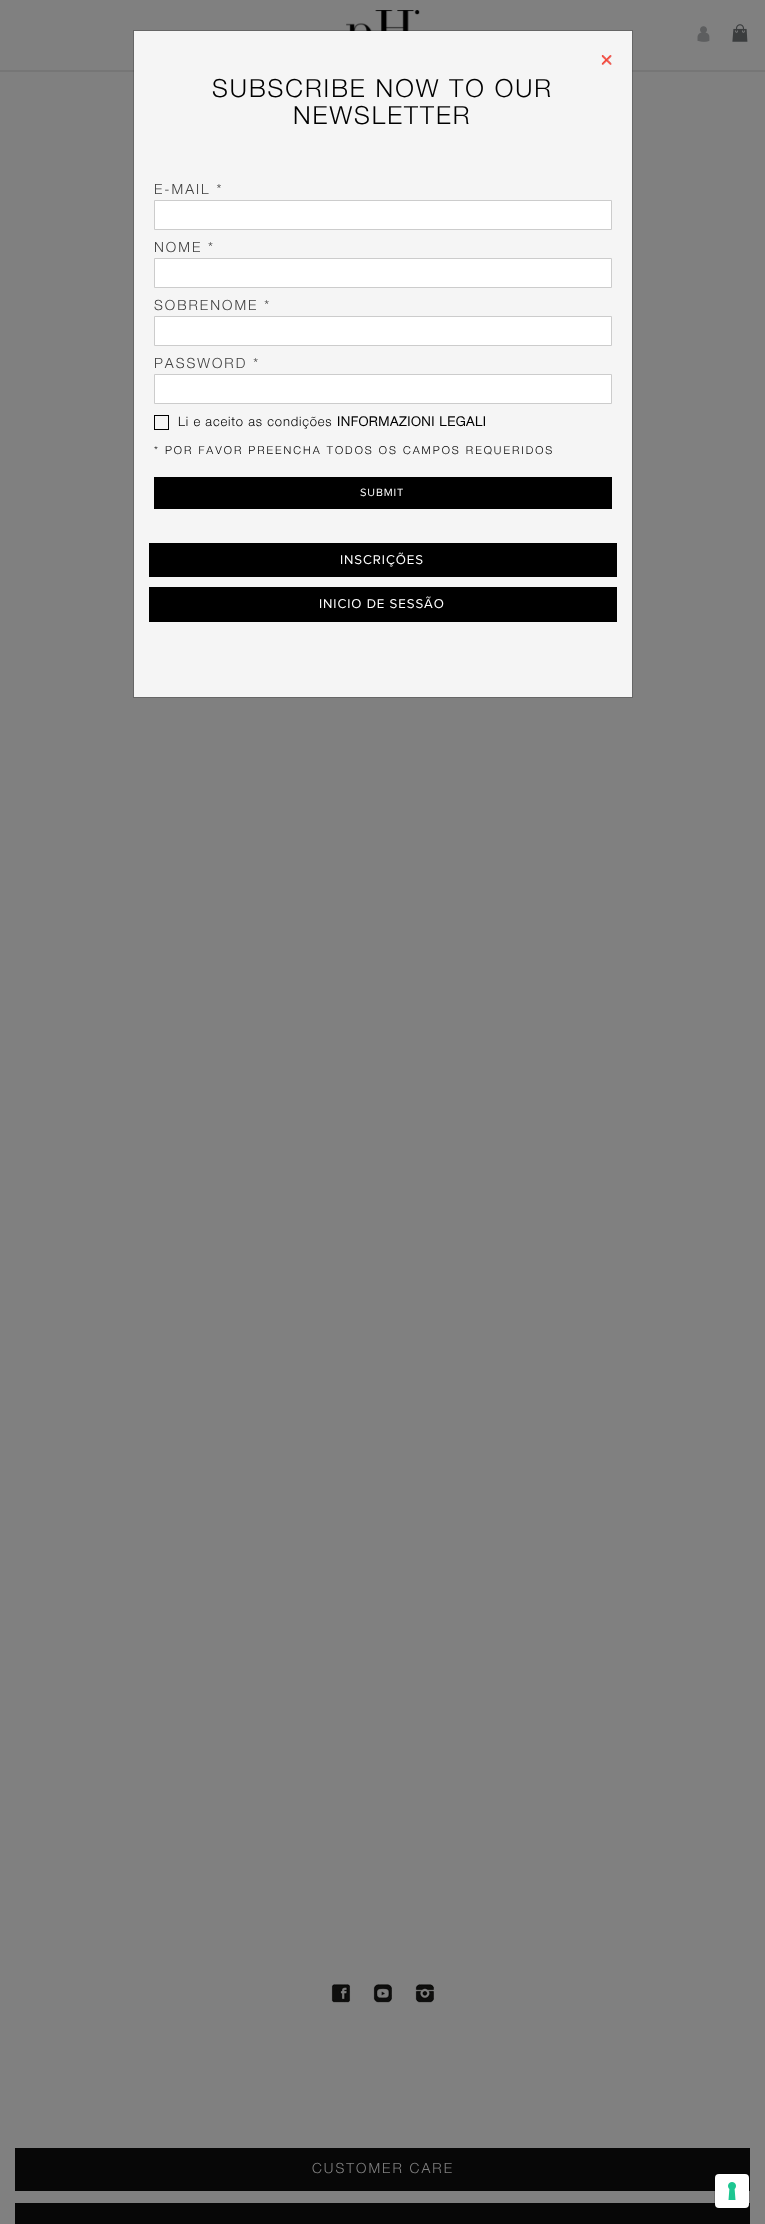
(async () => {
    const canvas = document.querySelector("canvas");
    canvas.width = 765;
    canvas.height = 2224;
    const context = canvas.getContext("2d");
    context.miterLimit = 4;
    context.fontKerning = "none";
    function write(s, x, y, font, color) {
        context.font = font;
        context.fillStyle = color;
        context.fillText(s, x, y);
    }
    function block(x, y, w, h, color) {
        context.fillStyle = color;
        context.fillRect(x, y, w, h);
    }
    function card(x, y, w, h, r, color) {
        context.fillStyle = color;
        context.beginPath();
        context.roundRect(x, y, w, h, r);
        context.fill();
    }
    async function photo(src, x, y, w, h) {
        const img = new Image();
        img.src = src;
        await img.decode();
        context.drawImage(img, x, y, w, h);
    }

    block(0, 0, 765, 2224, "rgb(128, 128, 128)");
    await photo("media/1.png", 346, 10, 74, 21);
    block(0, 70, 765, 2, "rgb(118, 118, 118)");
    context.strokeStyle = "rgba(0, 0, 0, 0.2)";
    context.strokeRect(133.5, 30.5, 499, 667);
    block(134, 31, 498, 666, "rgb(245, 245, 245)");
    write("❌", 601, 63, "9px Noto Color Emoji", "rgb(0, 0, 0)");
    context.letterSpacing = "2px";
    write("SUBSCRIBE NOW TO OUR", 212, 97, "300 25px Helvetica Neue", "rgb(0, 0, 0)");
    write("NEWSLETTER", 293, 124, "300 25px Helvetica Neue", "rgb(0, 0, 0)");
    write("E-MAIL *", 154, 194, "300 14px Helvetica Neue", "rgb(65, 65, 65)");
    context.fillStyle = "rgb(255, 255, 255)";
    context.beginPath();
    context.rect(154.5, 200.5, 457, 29);
    context.fill();
    context.strokeStyle = "rgb(204, 204, 204)";
    context.stroke();
    write("NOME *", 154, 252, "300 14px Helvetica Neue", "rgb(65, 65, 65)");
    context.fillStyle = "rgb(255, 255, 255)";
    context.beginPath();
    context.rect(154.5, 258.5, 457, 29);
    context.fill();
    context.stroke();
    write("SOBRENOME *", 154, 310, "300 14px Helvetica Neue", "rgb(65, 65, 65)");
    context.fillStyle = "rgb(255, 255, 255)";
    context.beginPath();
    context.rect(154.5, 316.5, 457, 29);
    context.fill();
    context.stroke();
    write("PASSWORD *", 154, 368, "300 14px Helvetica Neue", "rgb(65, 65, 65)");
    context.fillStyle = "rgb(255, 255, 255)";
    context.beginPath();
    context.rect(154.5, 374.5, 457, 29);
    context.fill();
    context.stroke();
    context.strokeStyle = "rgb(0, 0, 0)";
    context.strokeRect(154.5, 415.5, 14, 14);
    context.letterSpacing = "0.8px";
    write("Li e aceito as condições", 178, 426, "300 13px Helvetica Neue", "rgb(0, 0, 0)");
    write("INFORMAZIONI LEGALI", 337, 426, "bold 13px Helvetica Neue", "rgb(0, 0, 0)");
    context.letterSpacing = "2px";
    write("* POR FAVOR PREENCHA TODOS OS CAMPOS REQUERIDOS", 154, 454, "300 11px Helvetica Neue", "rgb(0, 0, 0)");
    block(154, 477, 458, 32, "rgb(0, 0, 0)");
    context.letterSpacing = "0.9px";
    write("SUBMIT", 360, 496, "11px Proxima Nova", "rgb(255, 255, 255)");
    block(149, 543, 468, 34, "rgb(0, 0, 0)");
    write("INSCRIÇÕES", 340, 564, "13.25px Proxima Nova", "rgb(255, 255, 255)");
    block(149, 587, 468, 35, "rgb(0, 0, 0)");
    write("INICIO DE SESSÃO", 319, 608, "13.25px Proxima Nova", "rgb(255, 255, 255)");
    await photo("media/2.png", 697, 26, 13, 16);
    await photo("media/3.png", 732, 24, 16, 18);
    await photo("media/4.png", 331, 1984, 20, 19);
    await photo("media/5.png", 373, 1984, 19, 19);
    await photo("media/6.png", 415, 1984, 19, 19);
    block(15, 2148, 735, 43, "rgb(7, 7, 7)");
    context.letterSpacing = "2px";
    write("CUSTOMER CARE", 312, 2173, "300 14px Helvetica Neue", "rgb(128, 128, 128)");
    block(15, 2203, 735, 21, "rgb(7, 7, 7)");
    context.beginPath();
    context.roundRect(714.5, 2173.5, 35, 35, 4.5);
    context.strokeStyle = "rgba(0, 0, 0, 0.15)";
    context.stroke();
    card(715, 2174, 34, 34, 4, "rgb(255, 255, 255)");
    await photo("media/7.png", 728, 2182, 8, 18);
})();
